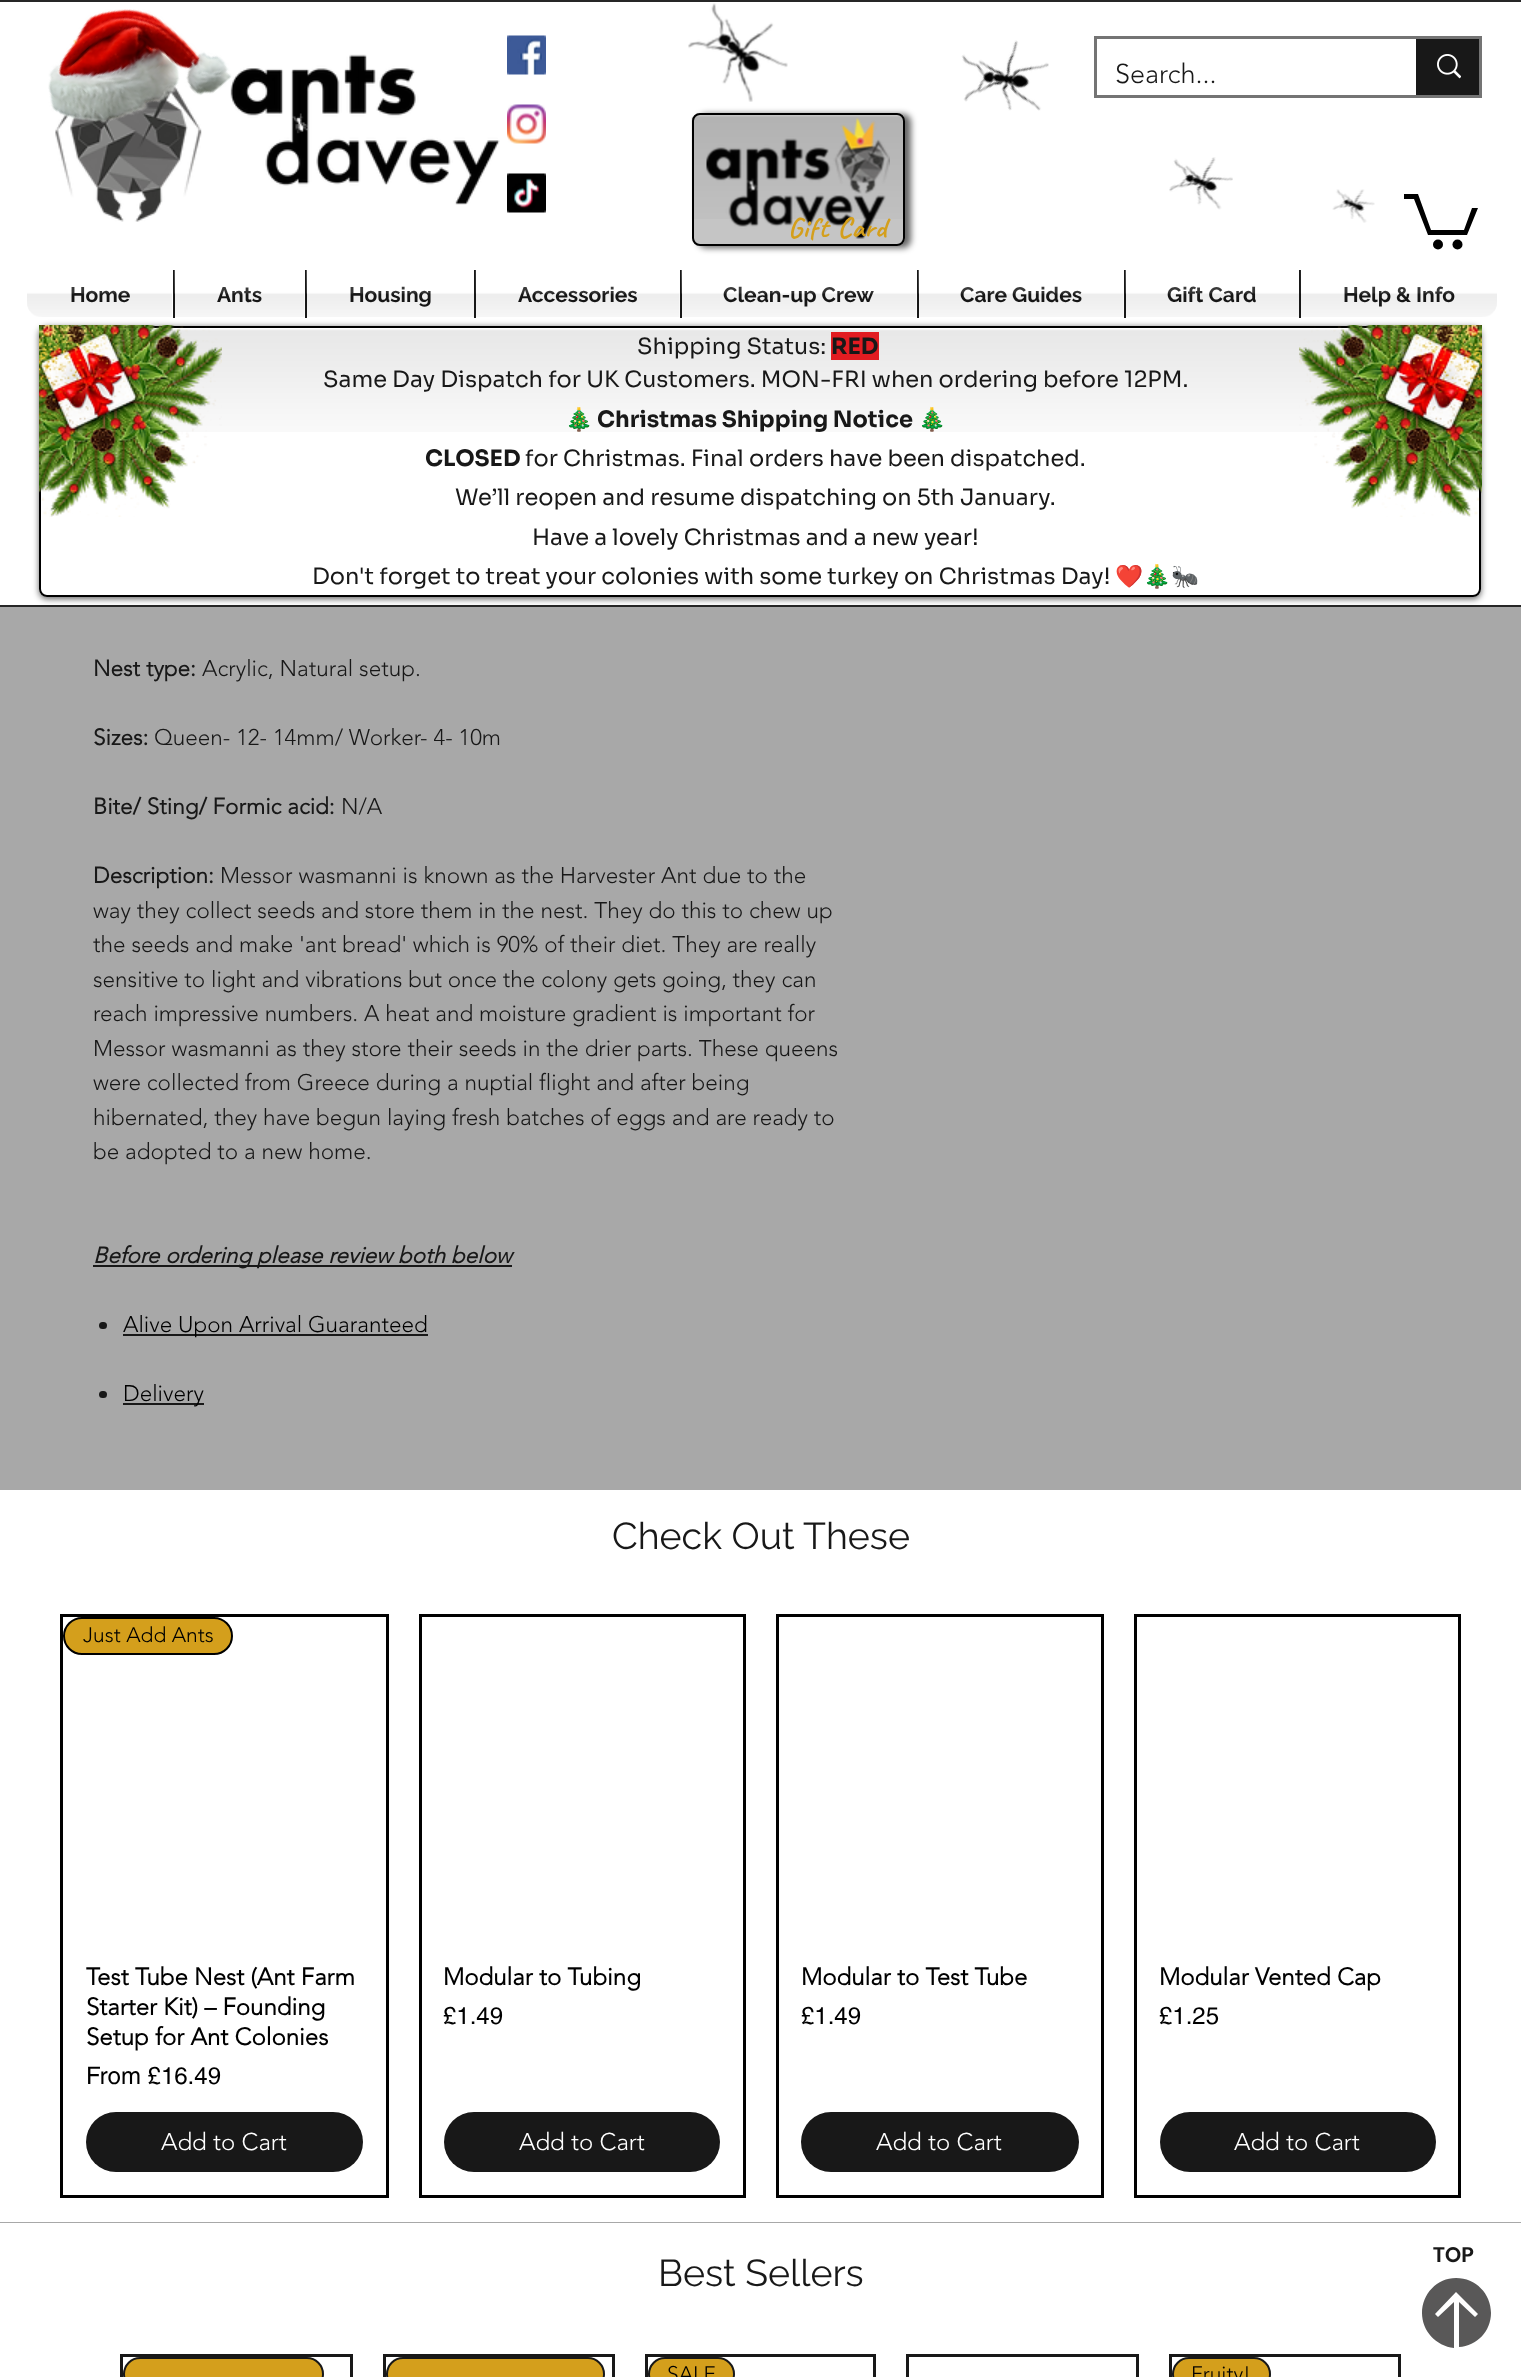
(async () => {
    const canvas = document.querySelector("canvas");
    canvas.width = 1521;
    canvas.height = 2377;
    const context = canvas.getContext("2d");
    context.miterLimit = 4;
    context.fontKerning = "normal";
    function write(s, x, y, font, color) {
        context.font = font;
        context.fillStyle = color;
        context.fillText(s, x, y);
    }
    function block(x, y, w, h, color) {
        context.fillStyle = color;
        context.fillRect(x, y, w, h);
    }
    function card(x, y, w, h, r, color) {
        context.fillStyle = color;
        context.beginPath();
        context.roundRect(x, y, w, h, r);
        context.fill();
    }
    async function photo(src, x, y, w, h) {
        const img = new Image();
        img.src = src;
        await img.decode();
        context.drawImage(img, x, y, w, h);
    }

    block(0, 0, 1521, 2377, "rgb(168, 168, 168)");
    block(0, 2, 1521, 603, "rgb(255, 255, 255)");
    block(0, 0, 1521, 2, "rgb(38, 38, 38)");
    block(0, 605, 1521, 2, "rgb(38, 38, 38)");
    await photo("media/6.png", 55, 39, 147, 183);
    await photo("media/1.png", 48, 9, 184, 115);
    await photo("media/2.png", 507, 35, 39, 40);
    await photo("media/3.png", 507, 104, 39, 40);
    await photo("media/4.png", 507, 173, 39, 40);
    await photo("media/5.png", 688, 3, 100, 99);
    await photo("media/7.png", 230, 54, 270, 151);
    await photo("media/8.png", 961, 40, 88, 71);
    context.strokeStyle = "rgb(116, 116, 116)";
    context.lineWidth = 3;
    context.strokeRect(1095.5, 37.5, 385, 59);
    write("Search...", 1115, 83, "300 27px 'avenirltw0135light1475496'", "rgb(24, 24, 24)");
    block(1416, 39, 63, 56, "rgb(24, 24, 24)");
    await photo("media/9.png", 1437, 54, 24, 25);
    context.fillStyle = "rgba(0, 0, 0, 0.6)";
    context.filter = "blur(3px)";
    context.beginPath();
    context.roundRect(698, 114, 213, 134, 8);
    context.fill();
    context.filter = "none";
    card(692, 113, 213, 133, 8, "rgb(197, 197, 197)");
    await photo("media/10.png", 691, 116, 214, 103);
    context.beginPath();
    context.roundRect(693, 114, 211, 131, 7);
    context.strokeStyle = "rgb(0, 0, 0)";
    context.lineWidth = 2;
    context.stroke();
    await photo("media/11.png", 706, 117, 184, 122);
    context.letterSpacing = "0.25px";
    context.wordSpacing = "2px";
    write("Gift Card", 788, 237, "bold 28.5px Caveat", "rgb(212, 159, 28)");
    await photo("media/12.png", 1169, 157, 64, 53);
    await photo("media/13.png", 1332, 189, 43, 34);
    context.fillStyle = "rgb(0, 0, 0)";
    context.beginPath();
    context.moveTo(1478, 208);
    context.lineTo(1467, 235);
    context.lineTo(1428, 235);
    context.lineTo(1414, 199);
    context.lineTo(1404, 199);
    context.lineTo(1404, 194);
    context.lineTo(1418, 194);
    context.lineTo(1431, 230);
    context.lineTo(1464, 230);
    context.lineTo(1472, 208);
    context.fill();
    context.beginPath();
    context.arc(1457.5, 244.5, 5, 0, Math.PI * 2);
    context.fill();
    context.beginPath();
    context.arc(1438, 244.5, 5, 0, Math.PI * 2);
    context.fill();
    await photo("media/14.png", 27, 303, 1470, 8);
    context.fillStyle = "rgb(255, 255, 255)";
    context.beginPath();
    context.roundRect(27, 270, 146, 48, [15, 0, 0, 15]);
    context.fill();
    context.letterSpacing = "0px";
    context.wordSpacing = "0px";
    write("Home", 70, 302, "bold 21px Raleway", "rgb(24, 24, 24)");
    await photo("media/15.png", 27, 287, 145, 30);
    block(175, 303, 130, 8, "rgb(255, 255, 255)");
    block(173, 270, 2, 48, "rgb(24, 24, 24)");
    write("Ants", 217, 302, "bold 21px Raleway", "rgb(24, 24, 24)");
    await photo("media/16.png", 174, 270, 131, 47);
    block(307, 303, 167, 8, "rgb(255, 255, 255)");
    block(305, 270, 2, 48, "rgb(24, 24, 24)");
    write("Housing", 349, 302, "bold 21px Raleway", "rgb(24, 24, 24)");
    await photo("media/17.png", 306, 270, 168, 47);
    block(476, 303, 204, 8, "rgb(255, 255, 255)");
    block(474, 270, 2, 48, "rgb(24, 24, 24)");
    write("Accessories", 518, 302, "bold 21px Raleway", "rgb(24, 24, 24)");
    await photo("media/18.png", 475, 270, 205, 47);
    block(682, 303, 235, 8, "rgb(255, 255, 255)");
    block(680, 270, 2, 48, "rgb(24, 24, 24)");
    write("Clean-up Crew", 723, 302, "bold 21px Raleway", "rgb(24, 24, 24)");
    await photo("media/19.png", 681, 270, 236, 47);
    block(919, 303, 205, 8, "rgb(255, 255, 255)");
    block(917, 270, 2, 48, "rgb(24, 24, 24)");
    write("Care Guides", 960, 302, "bold 21px Raleway", "rgb(24, 24, 24)");
    await photo("media/20.png", 918, 270, 206, 47);
    block(1126, 303, 173, 8, "rgb(255, 255, 255)");
    block(1124, 270, 2, 48, "rgb(24, 24, 24)");
    write("Gift Card", 1167, 302, "bold 21px Raleway", "rgb(24, 24, 24)");
    await photo("media/21.png", 1125, 270, 174, 47);
    context.fillStyle = "rgb(255, 255, 255)";
    context.beginPath();
    context.roundRect(1299, 270, 198, 48, [0, 15, 15, 0]);
    context.fill();
    block(1299, 270, 2, 48, "rgb(24, 24, 24)");
    write("Help & Info", 1343, 302, "bold 21px Raleway", "rgb(24, 24, 24)");
    await photo("media/22.png", 1300, 270, 197, 47);
    context.fillStyle = "rgba(0, 0, 0, 0.6)";
    context.filter = "blur(3px)";
    context.beginPath();
    context.roundRect(39, 327, 1442, 272, 8);
    context.fill();
    context.filter = "none";
    card(39, 326, 1442, 271, 8, "rgb(255, 255, 255)");
    await photo("media/23.png", 39, 329, 1441, 103);
    context.beginPath();
    context.roundRect(40, 327, 1440, 269, 7);
    context.stroke();
    await photo("media/24.png", 39, 325, 183, 192);
    write("Shipping Status:", 637, 354, "22.5px Sora", "rgb(24, 24, 24)");
    block(831, 332, 48, 28, "rgb(226, 28, 33)");
    write("RED", 831, 354, "bold 22.5px Sora", "rgb(24, 24, 24)");
    write("Same Day Dispatch for UK Customers. MON-FRI when ordering before 12PM.", 323, 387, "22.5px Sora", "rgb(24, 24, 24)");
    write("🎄", 565, 427, "bold 22.5px Noto Color Emoji", "rgb(24, 24, 24)");
    write("Christmas Shipping Notice", 597, 427, "bold 22.5px Sora", "rgb(24, 24, 24)");
    write("🎄", 918, 427, "bold 22.5px Noto Color Emoji", "rgb(24, 24, 24)");
    write("CLOSED", 425, 466, "bold 22.5px Sora", "rgb(24, 24, 24)");
    write("for Christmas. Final orders have been dispatched.", 525, 466, "22.5px Sora", "rgb(24, 24, 24)");
    write("We’ll reopen and resume dispatching on 5th January.", 455, 505, "22.5px Sora", "rgb(24, 24, 24)");
    write("Have a lovely Christmas and a new year!", 532, 545, "22.5px Sora", "rgb(24, 24, 24)");
    write("Don't forget to treat your colonies with some turkey on Christmas Day!", 312, 584, "22.5px Sora", "rgb(24, 24, 24)");
    write("❤️🎄🐜", 1115, 584, "22.5px Noto Color Emoji", "rgb(24, 24, 24)");
    await photo("media/25.png", 1299, 325, 183, 192);
    write("Nest type:", 93, 676, "bold 22.5px 'avenirltw0135light1475496'", "rgb(24, 24, 24)");
    write("Acrylic, Natural setup.", 202, 676, "300 22.5px 'avenirltw0135light1475496'", "rgb(24, 24, 24)");
    write("Sizes:", 93, 745, "bold 22.5px 'avenirltw0135light1475496'", "rgb(24, 24, 24)");
    write("Queen- 12- 14mm/ Worker- 4- 10m", 154, 745, "300 22.5px 'avenirltw0135light1475496'", "rgb(24, 24, 24)");
    write("Bite/ Sting/ Formic acid:", 93, 814, "bold 22.5px 'avenirltw0135light1475496'", "rgb(24, 24, 24)");
    write("N/A", 341, 814, "300 22.5px 'avenirltw0135light1475496'", "rgb(24, 24, 24)");
    write("Description:", 93, 883, "bold 22.5px 'avenirltw0135light1475496'", "rgb(24, 24, 24)");
    write("Messor wasmanni is known as the Harvester Ant due to the", 220, 883, "300 22.5px 'avenirltw0135light1475496'", "rgb(24, 24, 24)");
    write("way they collect seeds and store them in the nest. They do this to chew up", 93, 918, "300 22.5px 'avenirltw0135light1475496'", "rgb(24, 24, 24)");
    write("the seeds and make 'ant bread' which is 90% of their diet. They are really", 93, 952, "300 22.5px 'avenirltw0135light1475496'", "rgb(24, 24, 24)");
    write("sensitive to light and vibrations but once the colony gets going, they can", 93, 987, "300 22.5px 'avenirltw0135light1475496'", "rgb(24, 24, 24)");
    write("reach impressive numbers. A heat and moisture gradient is important for", 93, 1021, "300 22.5px 'avenirltw0135light1475496'", "rgb(24, 24, 24)");
    write("Messor wasmanni as they store their seeds in the drier parts. These queens", 93, 1056, "300 22.5px 'avenirltw0135light1475496'", "rgb(24, 24, 24)");
    write("were collected from Greece during a nuptial flight and after being", 93, 1090, "300 22.5px 'avenirltw0135light1475496'", "rgb(24, 24, 24)");
    write("hibernated, they have begun laying fresh batches of eggs and are ready to", 93, 1125, "300 22.5px 'avenirltw0135light1475496'", "rgb(24, 24, 24)");
    write("be adopted to a new home.", 93, 1159, "300 22.5px 'avenirltw0135light1475496'", "rgb(24, 24, 24)");
    block(93, 1265, 419, 2, "rgb(24, 24, 24)");
    write("Before ordering please review both below", 93, 1263, "italic bold 22.5px 'avenirltw0135light1475496'", "rgb(24, 24, 24)");
    card(99, 1322, 8, 7, 3.5, "rgb(24, 24, 24)");
    block(123, 1334, 305, 2, "rgb(24, 24, 24)");
    write("Alive Upon Arrival Guaranteed", 123, 1332, "300 22.5px 'avenirltw0135light1475496'", "rgb(0, 0, 0)");
    card(99, 1391, 8, 7, 3.5, "rgb(24, 24, 24)");
    block(123, 1403, 81, 2, "rgb(24, 24, 24)");
    write("Delivery", 123, 1401, "300 22.5px 'avenirltw0135light1475496'", "rgb(0, 0, 0)");
    block(0, 1490, 1521, 732, "rgb(255, 255, 255)");
    write("Check Out These", 612, 1549, "37.5px Raleway", "rgb(24, 24, 24)");
    context.lineWidth = 3;
    context.strokeRect(61.5, 1615.5, 326, 581);
    context.fillStyle = "rgb(212, 159, 28)";
    context.beginPath();
    context.roundRect(64, 1618, 168, 36, 18);
    context.fill();
    context.lineWidth = 2;
    context.stroke();
    write("Just Add Ants", 83, 1642, "300 21px 'avenirltw0135light1475496'", "rgb(0, 0, 0)");
    write("Test Tube Nest (Ant Farm", 86, 1985, "bold 24px 'avenirltw0135light1475496'", "rgb(0, 0, 0)");
    write("Starter Kit) – Founding", 86, 2015, "bold 24px 'avenirltw0135light1475496'", "rgb(0, 0, 0)");
    write("Setup for Ant Colonies", 86, 2045, "bold 24px 'avenirltw0135light1475496'", "rgb(0, 0, 0)");
    write("From £16.49", 86, 2084, "24px helvetica", "rgb(0, 0, 0)");
    card(86, 2112, 277, 60, 30, "rgb(24, 24, 24)");
    write("Add to Cart", 161, 2150, "300 24px 'avenirltw0135light1475496'", "rgb(255, 255, 255)");
    context.lineWidth = 3;
    context.strokeRect(420.5, 1615.5, 324, 581);
    write("Modular to Tubing", 443, 1985, "bold 24px 'avenirltw0135light1475496'", "rgb(0, 0, 0)");
    write("£1.49", 443, 2024, "24px helvetica", "rgb(0, 0, 0)");
    card(444, 2112, 276, 60, 30, "rgb(24, 24, 24)");
    write("Add to Cart", 519, 2150, "300 24px 'avenirltw0135light1475496'", "rgb(255, 255, 255)");
    context.strokeRect(777.5, 1615.5, 325, 581);
    write("Modular to Test Tube", 801, 1985, "bold 24px 'avenirltw0135light1475496'", "rgb(0, 0, 0)");
    write("£1.49", 801, 2024, "24px helvetica", "rgb(0, 0, 0)");
    card(801, 2112, 278, 60, 30, "rgb(24, 24, 24)");
    write("Add to Cart", 876, 2150, "300 24px 'avenirltw0135light1475496'", "rgb(255, 255, 255)");
    context.strokeRect(1135.5, 1615.5, 324, 581);
    write("Modular Vented Cap", 1159, 1985, "bold 24px 'avenirltw0135light1475496'", "rgb(0, 0, 0)");
    write("£1.25", 1159, 2024, "24px helvetica", "rgb(0, 0, 0)");
    card(1160, 2112, 276, 60, 30, "rgb(24, 24, 24)");
    write("Add to Cart", 1234, 2150, "300 24px 'avenirltw0135light1475496'", "rgb(255, 255, 255)");
    block(0, 2223, 1521, 154, "rgb(255, 255, 255)");
    write("Best Sellers", 658, 2286, "37.5px Raleway", "rgb(24, 24, 24)");
    context.strokeStyle = "rgb(24, 24, 24)";
    context.strokeRect(121.5, 2355.5, 230, 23);
    context.fillStyle = "rgb(212, 159, 28)";
    context.beginPath();
    context.roundRect(124, 2358, 199, 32, 16);
    context.fill();
    context.lineWidth = 2;
    context.stroke();
    context.lineWidth = 3;
    context.strokeRect(384.5, 2355.5, 229, 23);
    context.beginPath();
    context.roundRect(387, 2358, 217, 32, 16);
    context.fill();
    context.lineWidth = 2;
    context.stroke();
    context.lineWidth = 3;
    context.strokeRect(646.5, 2355.5, 228, 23);
    context.beginPath();
    context.roundRect(649, 2358, 85, 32, 16);
    context.fill();
    context.lineWidth = 2;
    context.stroke();
    write("SALE", 667, 2381, "300 21px 'avenirltw0135light1475496'", "rgb(0, 0, 0)");
    context.lineWidth = 3;
    context.strokeRect(907.5, 2355.5, 230, 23);
    context.strokeRect(1170.5, 2355.5, 229, 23);
    context.fillStyle = "rgb(212, 159, 28)";
    context.beginPath();
    context.roundRect(1173, 2358, 97, 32, 16);
    context.fill();
    context.lineWidth = 2;
    context.stroke();
    write("Fruity!", 1191, 2381, "300 21px 'avenirltw0135light1475496'", "rgb(0, 0, 0)");
    write("TOP", 1433, 2262, "600 21px Poppins", "rgb(24, 24, 24)");
    context.fillStyle = "rgb(89, 88, 88)";
    context.beginPath();
    context.moveTo(1422, 2313);
    context.bezierCurveTo(1422, 2331, 1436, 2346, 1454, 2348);
    context.lineTo(1454, 2302);
    context.lineTo(1438, 2317);
    context.lineTo(1435, 2314);
    context.lineTo(1456, 2292);
    context.lineTo(1478, 2314);
    context.lineTo(1475, 2317);
    context.lineTo(1459, 2302);
    context.lineTo(1459, 2347);
    context.bezierCurveTo(1477, 2346, 1491, 2331, 1491, 2313);
    context.bezierCurveTo(1491, 2294, 1476, 2278, 1456, 2278);
    context.bezierCurveTo(1437, 2278, 1422, 2294, 1422, 2313);
    context.closePath();
    context.fill();
})();
